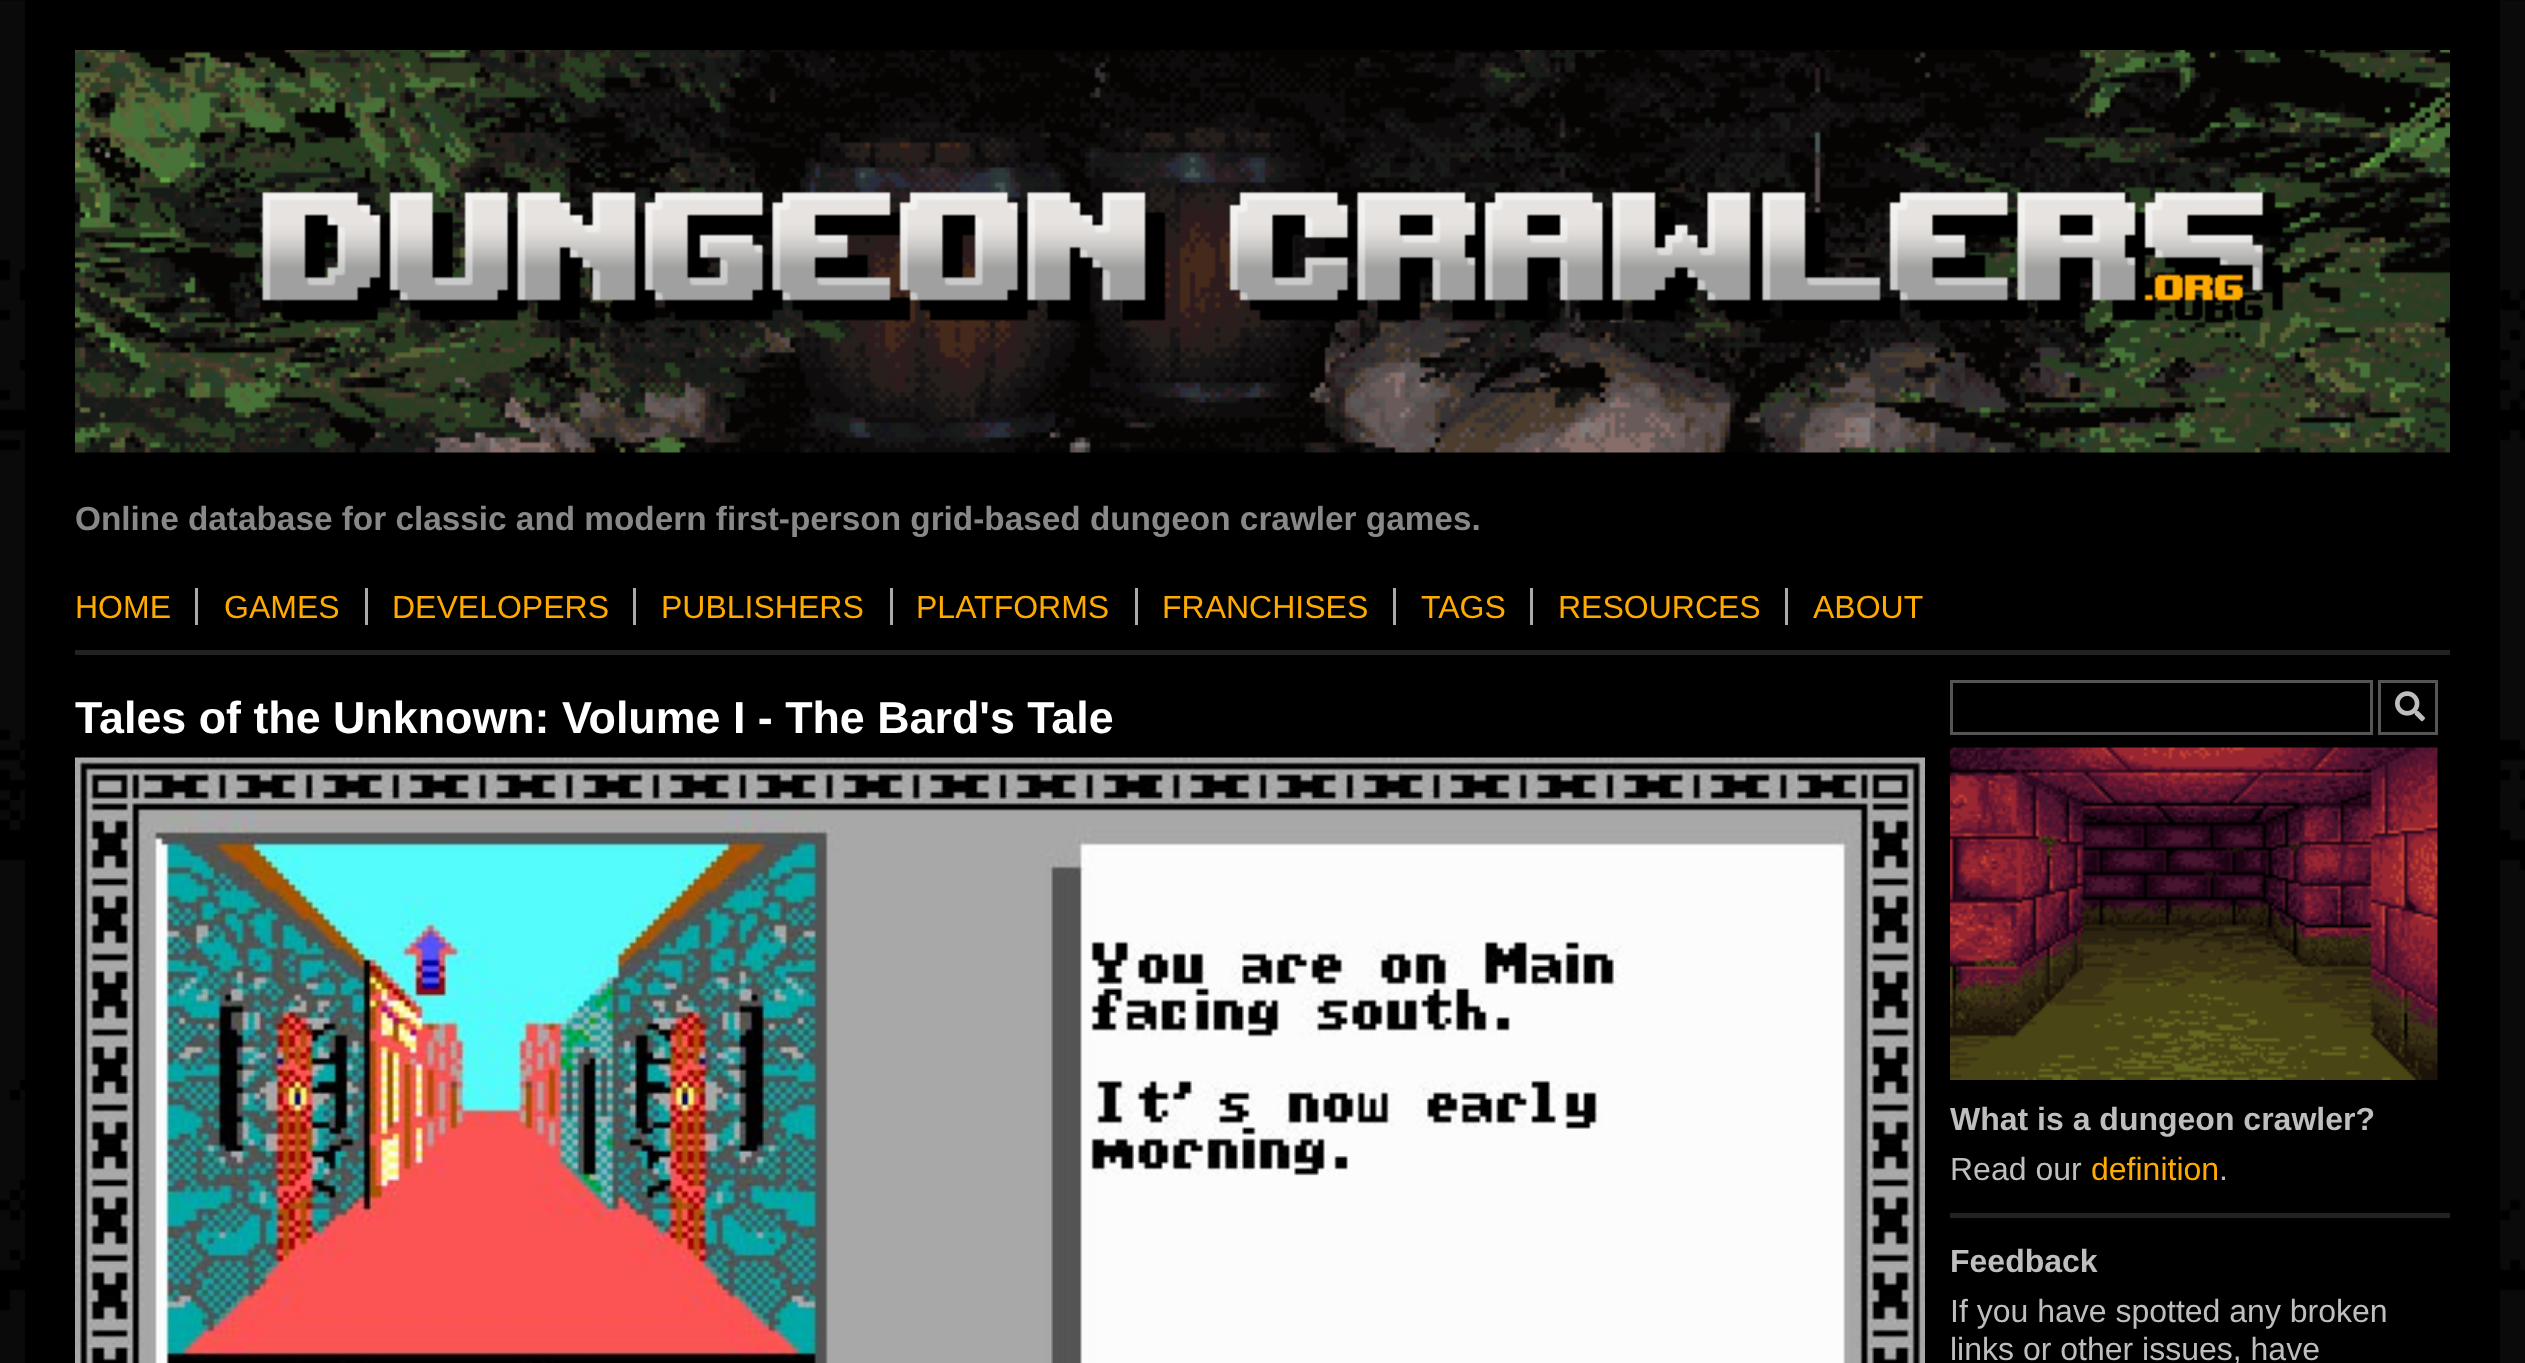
(async () => {
    const canvas = document.querySelector("canvas");
    canvas.width = 2525;
    canvas.height = 1363;
    const context = canvas.getContext("2d");
    context.miterLimit = 4;
    context.fontKerning = "normal";
    function write(s, x, y, font, color) {
        context.font = font;
        context.fillStyle = color;
        context.fillText(s, x, y);
    }
    function block(x, y, w, h, color) {
        context.fillStyle = color;
        context.fillRect(x, y, w, h);
    }
    async function photo(src, x, y, w, h) {
        const img = new Image();
        img.src = src;
        await img.decode();
        context.drawImage(img, x, y, w, h);
    }

    block(0, 0, 2525, 1363, "rgb(255, 255, 255)");
    await photo("media/1.png", 0, 0, 2525, 1363);
    block(25, 0, 2475, 1363, "rgb(0, 0, 0)");
    await photo("media/2.png", 75, 50, 2375, 403);
    write("Online database for classic and modern first-person grid-based dungeon crawler games.", 75, 530, "bold 33.35px Liberation Sans", "rgb(136, 136, 136)");
    write("HOME", 75, 618, "32px Liberation Sans", "rgb(255, 170, 0)");
    block(195, 588, 3, 37, "rgb(170, 170, 170)");
    write("GAMES", 224, 618, "32px Liberation Sans", "rgb(255, 170, 0)");
    write("DEVELOPERS", 392, 618, "32px Liberation Sans", "rgb(255, 170, 0)");
    block(365, 588, 3, 37, "rgb(170, 170, 170)");
    block(633, 588, 3, 37, "rgb(170, 170, 170)");
    write("PUBLISHERS", 661, 618, "32px Liberation Sans", "rgb(255, 170, 0)");
    write("PLATFORMS", 916, 618, "32px Liberation Sans", "rgb(255, 170, 0)");
    block(890, 588, 3, 37, "rgb(170, 170, 170)");
    write("FRANCHISES", 1162, 618, "32px Liberation Sans", "rgb(255, 170, 0)");
    block(1135, 588, 3, 37, "rgb(170, 170, 170)");
    write("TAGS", 1421, 618, "32px Liberation Sans", "rgb(255, 170, 0)");
    block(1393, 588, 3, 37, "rgb(170, 170, 170)");
    block(1530, 588, 3, 37, "rgb(170, 170, 170)");
    write("RESOURCES", 1558, 618, "32px Liberation Sans", "rgb(255, 170, 0)");
    block(1785, 588, 3, 37, "rgb(170, 170, 170)");
    write("ABOUT", 1813, 618, "32px Liberation Sans", "rgb(255, 170, 0)");
    block(75, 650, 2375, 5, "rgb(34, 34, 34)");
    write("Tales of the Unknown: Volume I - The Bard's Tale", 75, 733, "bold 44.8px Liberation Sans", "rgb(255, 255, 255)");
    await photo("media/3.png", 75, 757, 1850, 606);
    context.strokeStyle = "rgb(85, 85, 85)";
    context.lineWidth = 3;
    context.strokeRect(1951.5, 681.5, 420, 52);
    context.strokeRect(2379.5, 681.5, 57, 52);
    await photo("media/4.png", 2395, 691, 30, 31);
    await photo("media/5.png", 1950, 747, 488, 333);
    write("What is a dungeon crawler?", 1950, 1130, "bold 32px Liberation Sans", "rgb(190, 190, 190)");
    write("Read our", 1950, 1180, "32px Liberation Sans", "rgb(190, 190, 190)");
    write("definition", 2091, 1180, "32px Liberation Sans", "rgb(255, 170, 0)");
    write(".", 2219, 1180, "32px Liberation Sans", "rgb(190, 190, 190)");
    block(1950, 1213, 500, 5, "rgb(34, 34, 34)");
    write("Feedback", 1950, 1272, "bold 32px Liberation Sans", "rgb(190, 190, 190)");
    write("If you have spotted any broken", 1950, 1322, "32px Liberation Sans", "rgb(190, 190, 190)");
    write("links or other issues, have", 1950, 1360, "32px Liberation Sans", "rgb(190, 190, 190)");
})();
